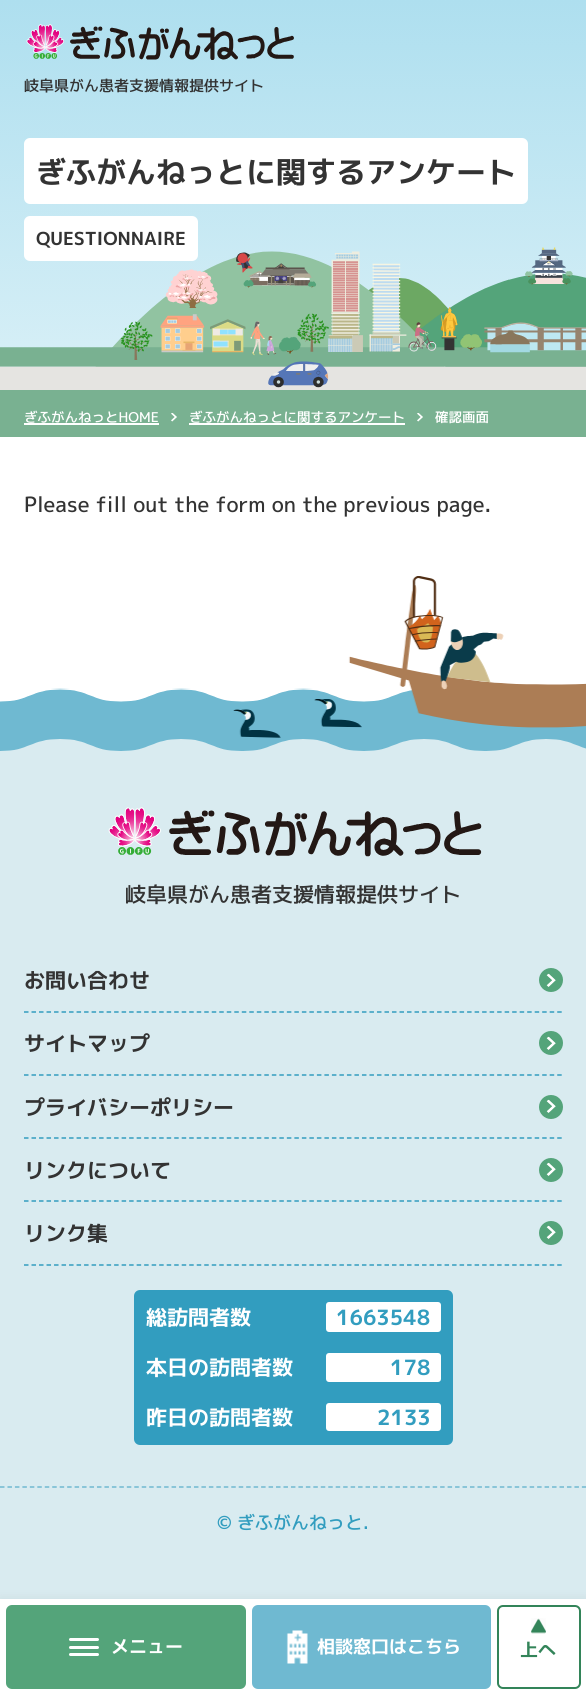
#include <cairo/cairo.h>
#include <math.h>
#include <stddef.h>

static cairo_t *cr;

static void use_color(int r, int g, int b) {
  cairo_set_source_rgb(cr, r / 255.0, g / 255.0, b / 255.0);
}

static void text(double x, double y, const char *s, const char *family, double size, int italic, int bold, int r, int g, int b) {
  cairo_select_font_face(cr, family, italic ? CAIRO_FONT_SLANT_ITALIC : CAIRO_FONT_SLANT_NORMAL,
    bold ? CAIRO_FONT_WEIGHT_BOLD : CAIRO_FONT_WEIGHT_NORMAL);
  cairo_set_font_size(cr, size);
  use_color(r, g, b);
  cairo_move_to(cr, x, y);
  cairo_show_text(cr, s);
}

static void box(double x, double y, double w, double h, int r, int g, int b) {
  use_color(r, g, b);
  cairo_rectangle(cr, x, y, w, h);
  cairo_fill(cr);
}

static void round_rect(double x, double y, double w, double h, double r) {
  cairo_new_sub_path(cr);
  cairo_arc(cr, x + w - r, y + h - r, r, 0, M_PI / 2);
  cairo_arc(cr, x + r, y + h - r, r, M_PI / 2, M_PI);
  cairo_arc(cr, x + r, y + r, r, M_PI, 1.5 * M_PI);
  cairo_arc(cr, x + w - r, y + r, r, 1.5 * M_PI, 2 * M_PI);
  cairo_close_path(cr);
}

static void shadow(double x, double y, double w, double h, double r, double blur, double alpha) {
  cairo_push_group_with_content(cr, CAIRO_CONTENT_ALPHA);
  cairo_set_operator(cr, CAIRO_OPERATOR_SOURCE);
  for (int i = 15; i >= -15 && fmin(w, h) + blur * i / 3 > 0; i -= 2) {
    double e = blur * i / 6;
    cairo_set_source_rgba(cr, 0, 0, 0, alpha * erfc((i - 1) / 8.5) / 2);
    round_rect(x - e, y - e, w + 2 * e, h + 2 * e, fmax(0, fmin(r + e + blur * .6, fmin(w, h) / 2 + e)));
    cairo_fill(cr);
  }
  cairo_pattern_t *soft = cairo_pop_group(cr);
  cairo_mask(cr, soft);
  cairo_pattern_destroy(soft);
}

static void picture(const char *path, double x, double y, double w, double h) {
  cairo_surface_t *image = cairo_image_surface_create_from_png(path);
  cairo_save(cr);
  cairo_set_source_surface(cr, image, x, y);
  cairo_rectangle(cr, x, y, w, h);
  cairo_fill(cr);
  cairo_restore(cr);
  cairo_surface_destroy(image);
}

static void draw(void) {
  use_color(255, 255, 255);
  cairo_paint(cr);
  picture("img_02.png", 0, 0, 586, 390);
  picture("img_01.png", 26, 24, 268, 36);
  use_color(255, 255, 255);
  round_rect(24, 138, 504, 66, 6);
  cairo_fill(cr);
  round_rect(24, 216, 174, 45, 6);
  cairo_fill(cr);
  box(0, 390, 586, 47, 121, 177, 145);
  box(24, 423, 135, 2, 255, 255, 255);
  picture("img_03.png", 171, 413, 6, 9);
  box(189, 423, 216, 2, 255, 255, 255);
  picture("img_03.png", 417, 413, 6, 9);
  box(0, 751, 586, 848, 217, 235, 240);
  picture("img_05.png", 0, 688, 586, 63);
  picture("img_04.png", 233, 576, 353, 162);
  picture("img_06.png", 108, 807, 374, 50);
  cairo_new_path(cr);
  cairo_move_to(cr, 24, 1012);
  cairo_line_to(cr, 562.5, 1012);
  use_color(50, 157, 191);
  cairo_set_line_width(cr, 1.5);
  cairo_set_dash(cr, (double[]){4.5, 3.01}, 2, 0);
  cairo_stroke(cr);
  use_color(84, 164, 122);
  cairo_arc(cr, 551, 980, 12, 0, 2 * M_PI);
  cairo_fill(cr);
  picture("img_07.png", 546, 973, 10, 14);
  cairo_new_path(cr);
  cairo_move_to(cr, 24, 1075);
  cairo_line_to(cr, 562.5, 1075);
  use_color(50, 157, 191);
  cairo_stroke(cr);
  use_color(84, 164, 122);
  cairo_arc(cr, 551, 1043, 12, 0, 2 * M_PI);
  cairo_fill(cr);
  picture("img_07.png", 546, 1036, 10, 14);
  cairo_new_path(cr);
  cairo_move_to(cr, 24, 1138);
  cairo_line_to(cr, 562.5, 1138);
  use_color(50, 157, 191);
  cairo_stroke(cr);
  use_color(84, 164, 122);
  cairo_arc(cr, 551, 1107, 12, 0, 2 * M_PI);
  cairo_fill(cr);
  picture("img_07.png", 546, 1099, 10, 14);
  cairo_new_path(cr);
  cairo_move_to(cr, 24, 1201);
  cairo_line_to(cr, 562.5, 1201);
  use_color(50, 157, 191);
  cairo_stroke(cr);
  use_color(84, 164, 122);
  cairo_arc(cr, 551, 1170, 12, 0, 2 * M_PI);
  cairo_fill(cr);
  picture("img_07.png", 546, 1162, 10, 14);
  cairo_new_path(cr);
  cairo_move_to(cr, 24, 1265);
  cairo_line_to(cr, 562.5, 1265);
  use_color(50, 157, 191);
  cairo_stroke(cr);
  use_color(84, 164, 122);
  cairo_arc(cr, 551, 1233, 12, 0, 2 * M_PI);
  cairo_fill(cr);
  picture("img_07.png", 546, 1225, 10, 14);
  use_color(50, 157, 191);
  round_rect(134, 1290, 319, 155, 6);
  cairo_fill(cr);
  use_color(255, 255, 255);
  round_rect(326, 1302, 115, 30, 3);
  cairo_fill(cr);
  round_rect(326, 1353, 115, 29, 3);
  cairo_fill(cr);
  round_rect(326, 1403, 115, 28, 3);
  cairo_fill(cr);
  cairo_new_path(cr);
  cairo_move_to(cr, 0, 1487);
  cairo_line_to(cr, 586.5, 1487);
  use_color(111, 185, 209);
  cairo_set_dash(cr, (double[]){4.5, 2.96}, 2, 0);
  cairo_stroke(cr);
  use_color(51, 51, 51);
  shadow(0, 1599, 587, 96, 0, 6, 0.08);
  box(0, 1599, 586, 95, 255, 255, 255);
  use_color(84, 164, 122);
  round_rect(6, 1605, 240, 84, 6);
  cairo_fill(cr);
  use_color(255, 255, 255);
  round_rect(69, 1646, 30, 3, 1.5);
  cairo_fill(cr);
  round_rect(69, 1638, 30, 3, 1.5);
  cairo_fill(cr);
  round_rect(69, 1653, 30, 3, 1.5);
  cairo_fill(cr);
  use_color(111, 185, 209);
  round_rect(252, 1605, 239, 84, 6);
  cairo_fill(cr);
  picture("img_08.png", 286, 1630, 22, 34);
  round_rect(498, 1606, 82, 82, 5);
  use_color(51, 132, 89);
  cairo_set_line_width(cr, 2);
  cairo_set_dash(cr, NULL, 0, 0);
  cairo_stroke(cr);
  picture("img_09.png", 531, 1618, 15, 16);
  text(24, 91, "岐阜県がん患者支援情報提供サイト", "M PLUS 1p Medium", 15, 0, 0, 51, 51, 51);
  text(36, 183, "ぎふがんねっとに関するアンケート", "M PLUS 1p", 30, 0, 1, 51, 51, 51);
  text(36, 245, "QUESTIONNAIRE", "M PLUS 1p", 18, 0, 1, 51, 51, 51);
  text(24, 422, "ぎふがんねっとHOME", "M PLUS 1p Medium", 13.5, 0, 0, 255, 255, 255);
  text(189, 422, "ぎふがんねっとに関するアンケート", "M PLUS 1p Medium", 13.5, 0, 0, 255, 255, 255);
  text(435, 422, "確認画面", "M PLUS 1p Medium", 13.5, 0, 0, 255, 255, 255);
  text(24, 512, "Please fill out the form on the previous page.", "M PLUS 1p Medium", 21, 0, 0, 51, 51, 51);
  text(125, 902, "岐阜県がん患者支援情報提供サイト", "M PLUS 1p Medium", 21, 0, 0, 51, 51, 51);
  text(24, 988, "お問い合わせ", "M PLUS 1p", 21, 0, 1, 51, 51, 51);
  text(24, 1051, "サイトマップ", "M PLUS 1p", 21, 0, 1, 51, 51, 51);
  text(24, 1115, "プライバシーポリシー", "M PLUS 1p", 21, 0, 1, 51, 51, 51);
  text(24, 1178, "リンクについて", "M PLUS 1p", 21, 0, 1, 51, 51, 51);
  text(24, 1241, "リンク集", "M PLUS 1p", 21, 0, 1, 51, 51, 51);
  text(146, 1325, "総訪問者数", "M PLUS 1p", 21, 0, 1, 255, 255, 255);
  text(336, 1325, "1663548", "M PLUS 1p", 21, 0, 1, 50, 157, 191);
  text(146, 1375, "本日の訪問者数", "M PLUS 1p", 21, 0, 1, 255, 255, 255);
  text(390, 1375, "178", "M PLUS 1p", 21, 0, 1, 50, 157, 191);
  text(146, 1425, "昨日の訪問者数", "M PLUS 1p", 21, 0, 1, 255, 255, 255);
  text(377, 1425, "2133", "M PLUS 1p", 21, 0, 1, 50, 157, 191);
  text(217, 1529, "© ぎふがんねっと.", "M PLUS 1p Medium", 18, 0, 0, 50, 157, 191);
  text(111, 1653, "メニュー", "M PLUS 1p", 18, 0, 1, 255, 255, 255);
  text(317, 1653, "相談窓口はこちら", "M PLUS 1p", 18, 0, 1, 255, 255, 255);
  text(520, 1656, "上へ", "M PLUS 1p", 18, 0, 1, 51, 132, 89);
}

int main(void) {
  cairo_surface_t *surface = cairo_image_surface_create(CAIRO_FORMAT_RGB24, 586, 1694);
  cr = cairo_create(surface);
  cairo_font_options_t *options = cairo_font_options_create();
  cairo_font_options_set_hint_metrics(options, CAIRO_HINT_METRICS_OFF);
  cairo_font_options_set_hint_style(options, CAIRO_HINT_STYLE_NONE);
  cairo_set_font_options(cr, options);
  cairo_set_miter_limit(cr, 4);
  draw();
  cairo_surface_write_to_png(surface, "out.png");
  cairo_font_options_destroy(options);
  cairo_destroy(cr);
  cairo_surface_destroy(surface);
  return 0;
}
